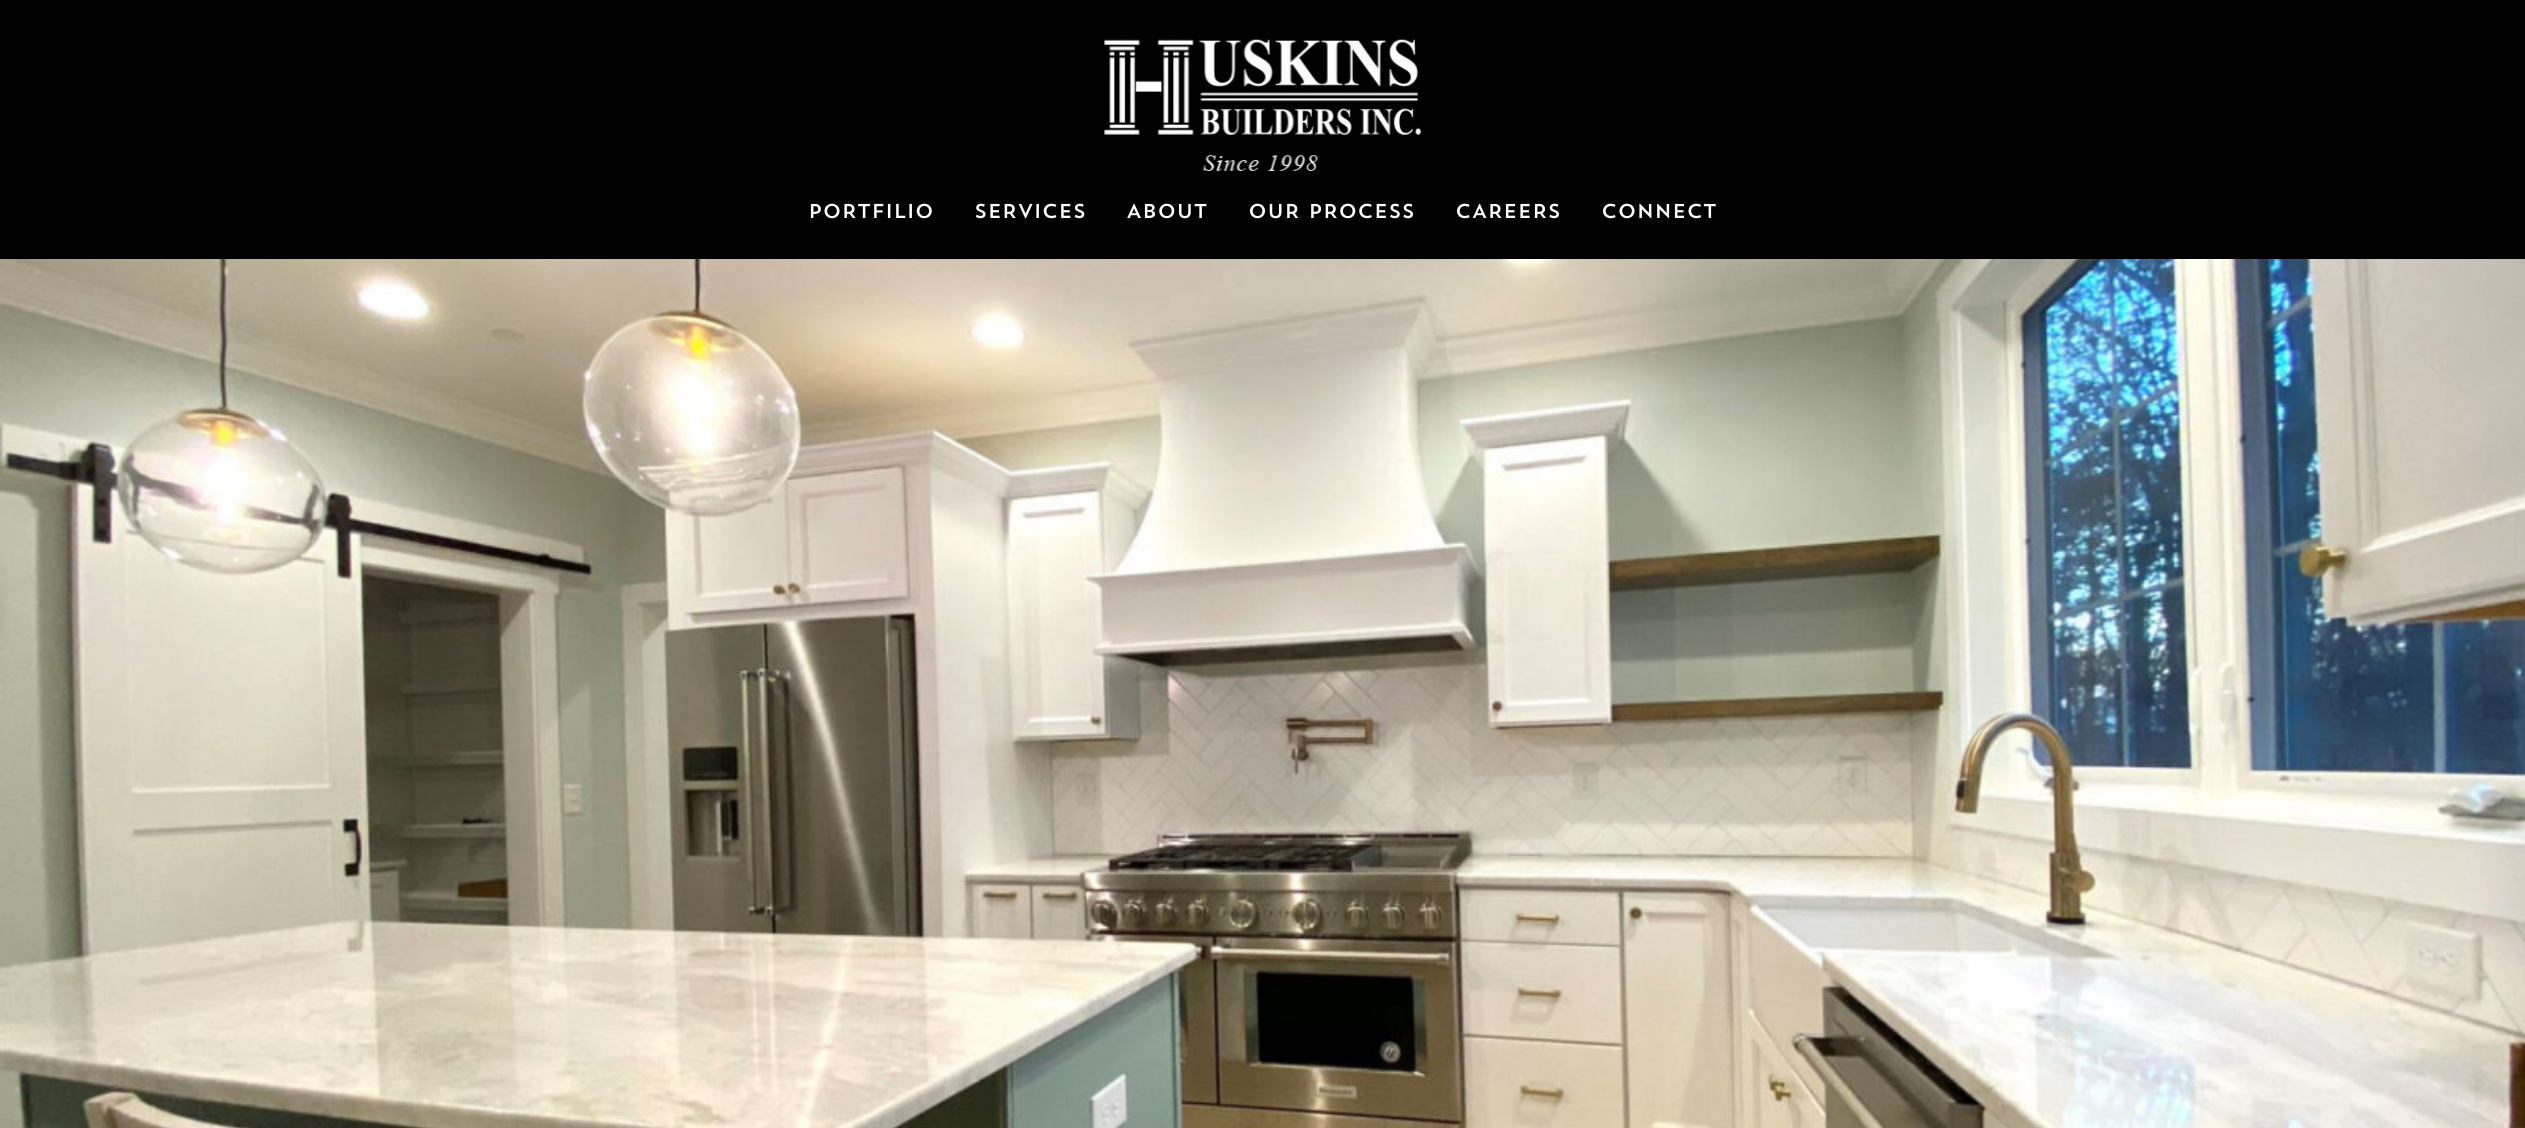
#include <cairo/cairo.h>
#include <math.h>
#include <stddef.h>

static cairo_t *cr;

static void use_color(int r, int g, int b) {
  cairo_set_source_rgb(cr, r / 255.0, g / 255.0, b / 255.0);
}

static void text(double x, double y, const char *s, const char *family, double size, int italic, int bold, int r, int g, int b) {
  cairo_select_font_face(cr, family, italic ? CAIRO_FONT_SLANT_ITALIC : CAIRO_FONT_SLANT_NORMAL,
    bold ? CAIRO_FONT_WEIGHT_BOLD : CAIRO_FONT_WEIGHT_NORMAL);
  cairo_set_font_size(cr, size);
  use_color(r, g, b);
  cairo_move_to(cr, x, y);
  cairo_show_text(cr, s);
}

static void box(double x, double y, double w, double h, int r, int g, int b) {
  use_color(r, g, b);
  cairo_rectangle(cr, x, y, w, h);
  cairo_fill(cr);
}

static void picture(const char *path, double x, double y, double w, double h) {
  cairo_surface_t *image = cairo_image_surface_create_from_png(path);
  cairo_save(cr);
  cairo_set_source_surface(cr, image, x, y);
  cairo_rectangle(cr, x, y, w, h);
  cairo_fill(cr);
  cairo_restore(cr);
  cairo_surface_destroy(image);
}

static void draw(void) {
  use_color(255, 255, 255);
  cairo_paint(cr);
  box(0, 0, 2525, 259, 0, 0, 0);
  picture("img_01.png", 1104, 39, 317, 132);
  picture("img_02.png", 0, 259, 2525, 869);
  text(808, 218, "PORTFILIO", "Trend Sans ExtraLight", 20, 0, 0, 255, 255, 255);
  text(974, 218, "SERVICES", "Trend Sans ExtraLight", 20, 0, 0, 255, 255, 255);
  text(1126, 218, "ABOUT", "Trend Sans ExtraLight", 20, 0, 0, 255, 255, 255);
  text(1248, 218, "OUR PROCESS", "Trend Sans ExtraLight", 20, 0, 0, 255, 255, 255);
  text(1455, 218, "CAREERS", "Trend Sans ExtraLight", 20, 0, 0, 255, 255, 255);
  text(1601, 218, "CONNECT", "Trend Sans ExtraLight", 20, 0, 0, 255, 255, 255);
}

int main(void) {
  cairo_surface_t *surface = cairo_image_surface_create(CAIRO_FORMAT_RGB24, 2525, 1128);
  cr = cairo_create(surface);
  cairo_font_options_t *options = cairo_font_options_create();
  cairo_font_options_set_hint_metrics(options, CAIRO_HINT_METRICS_OFF);
  cairo_font_options_set_hint_style(options, CAIRO_HINT_STYLE_NONE);
  cairo_set_font_options(cr, options);
  cairo_set_miter_limit(cr, 4);
  draw();
  cairo_surface_write_to_png(surface, "out.png");
  cairo_font_options_destroy(options);
  cairo_destroy(cr);
  cairo_surface_destroy(surface);
  return 0;
}
